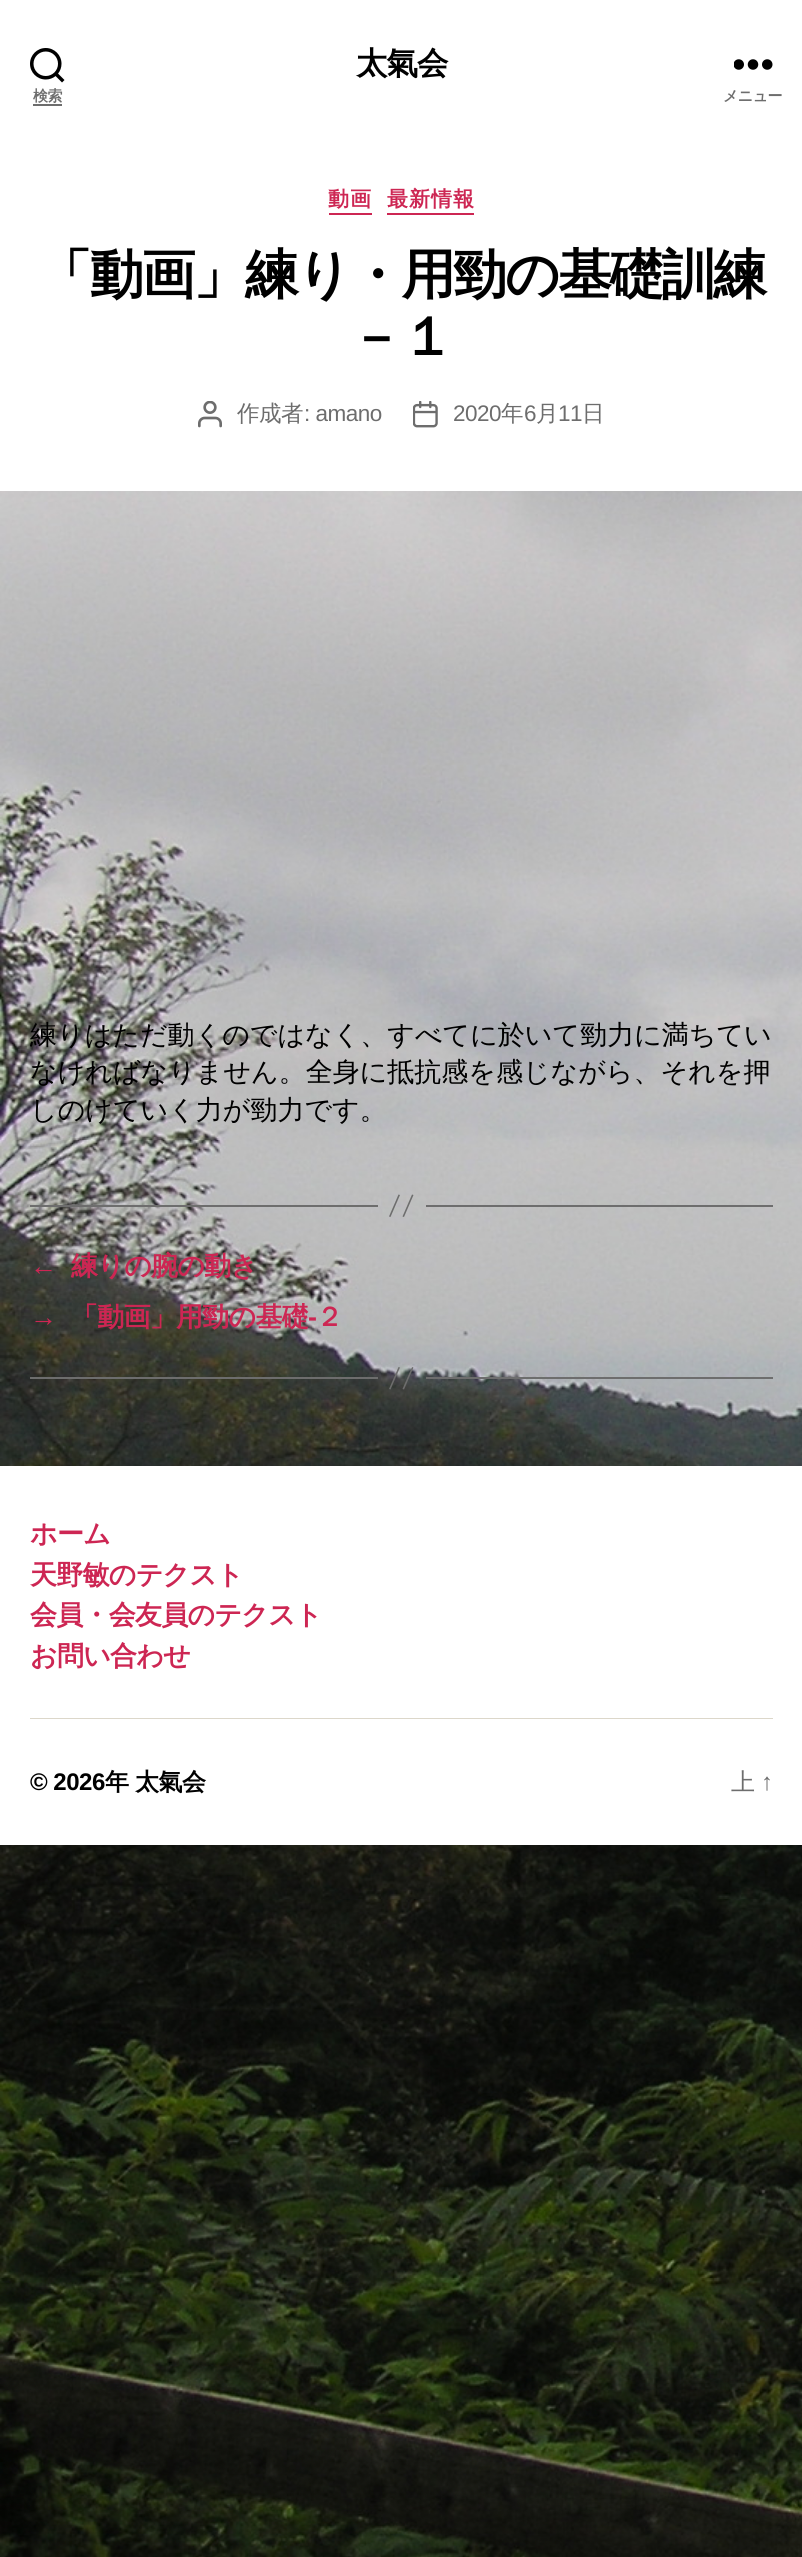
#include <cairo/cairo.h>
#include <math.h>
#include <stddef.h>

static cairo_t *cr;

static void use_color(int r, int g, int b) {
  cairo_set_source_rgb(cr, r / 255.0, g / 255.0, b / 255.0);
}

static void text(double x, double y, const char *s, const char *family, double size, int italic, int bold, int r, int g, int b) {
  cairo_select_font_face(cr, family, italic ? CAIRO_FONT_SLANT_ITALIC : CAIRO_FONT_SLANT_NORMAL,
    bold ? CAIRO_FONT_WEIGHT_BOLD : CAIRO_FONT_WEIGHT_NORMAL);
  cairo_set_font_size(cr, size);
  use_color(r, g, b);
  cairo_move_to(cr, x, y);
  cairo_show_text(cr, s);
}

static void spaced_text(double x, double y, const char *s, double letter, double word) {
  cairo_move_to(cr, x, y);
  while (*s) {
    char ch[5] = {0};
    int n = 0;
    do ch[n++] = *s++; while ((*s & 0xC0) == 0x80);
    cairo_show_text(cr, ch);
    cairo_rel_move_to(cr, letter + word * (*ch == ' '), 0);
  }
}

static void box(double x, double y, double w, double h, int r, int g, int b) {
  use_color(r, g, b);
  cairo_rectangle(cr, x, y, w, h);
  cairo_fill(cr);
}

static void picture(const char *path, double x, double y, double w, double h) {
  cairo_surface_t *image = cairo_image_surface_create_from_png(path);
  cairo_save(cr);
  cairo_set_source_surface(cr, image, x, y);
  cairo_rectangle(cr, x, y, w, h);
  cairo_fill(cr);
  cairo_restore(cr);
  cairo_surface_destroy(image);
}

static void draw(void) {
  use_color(255, 255, 255);
  cairo_paint(cr);
  picture("img_01.png", 0, 491, 802, 2066);
  picture("img_02.png", 30, 48, 35, 35);
  box(33, 104, 29, 2, 109, 109, 109);
  picture("img_03.png", 734, 59, 39, 11);
  box(329, 213, 43, 2, 205, 38, 83);
  box(387, 213, 87, 2, 205, 38, 83);
  picture("img_04.png", 198, 401, 24, 27);
  picture("img_05.png", 413, 401, 25, 27);
  box(426, 1205, 347, 2, 109, 109, 109);
  box(30, 1205, 348, 2, 109, 109, 109);
  cairo_new_path(cr);
  cairo_move_to(cr, 398.5, 1194.5);
  cairo_line_to(cr, 400, 1195);
  cairo_line_to(cr, 390.5, 1217);
  cairo_line_to(cr, 389, 1216.5);
  cairo_close_path(cr);
  cairo_move_to(cr, 412, 1194.5);
  cairo_line_to(cr, 413.5, 1195);
  cairo_line_to(cr, 404, 1217);
  cairo_line_to(cr, 402.5, 1216.5);
  cairo_close_path(cr);
  cairo_fill(cr);
  box(426, 1377, 347, 2, 109, 109, 109);
  box(30, 1377, 348, 2, 109, 109, 109);
  cairo_new_path(cr);
  cairo_move_to(cr, 398.5, 1367);
  cairo_line_to(cr, 400, 1367.5);
  cairo_line_to(cr, 390.5, 1389.5);
  cairo_line_to(cr, 389, 1389);
  cairo_close_path(cr);
  cairo_move_to(cr, 412, 1367);
  cairo_line_to(cr, 413.5, 1367.5);
  cairo_line_to(cr, 404, 1389.5);
  cairo_line_to(cr, 402.5, 1389);
  cairo_close_path(cr);
  cairo_fill(cr);
  box(0, 1466, 802, 379, 255, 255, 255);
  box(30, 1718, 743, 1, 220, 215, 202);
  cairo_select_font_face(cr, "WenQuanYi Zen Hei", CAIRO_FONT_SLANT_NORMAL, CAIRO_FONT_WEIGHT_BOLD);
  cairo_set_font_size(cr, 31.5);
  use_color(0, 0, 0);
  spaced_text(356, 74, "太氣会", -1, 0);
  cairo_set_font_size(cr, 15);
  use_color(109, 109, 109);
  spaced_text(33, 101, "検索", -0.5, 0);
  spaced_text(723, 101, "メニュー", -0.5, 0);
  cairo_set_font_size(cr, 21);
  use_color(205, 38, 83);
  spaced_text(328, 206, "動画", 1, 0);
  spaced_text(387, 206, "最新情報", 1, 0);
  cairo_set_font_size(cr, 54);
  use_color(0, 0, 0);
  spaced_text(38, 293, "「動画」練り・用勁の基礎訓練", -2.25, 0);
  spaced_text(349, 355, "－１", -2.25, 0);
  cairo_select_font_face(cr, "WenQuanYi Zen Hei Medium", CAIRO_FONT_SLANT_NORMAL, CAIRO_FONT_WEIGHT_NORMAL);
  cairo_set_font_size(cr, 22.5);
  use_color(109, 109, 109);
  spaced_text(237, 421, "作成者", -0.5, 0);
  cairo_select_font_face(cr, "Liberation Sans", CAIRO_FONT_SLANT_NORMAL, CAIRO_FONT_WEIGHT_NORMAL);
  spaced_text(304, 421, ": amano", -0.5, 0);
  spaced_text(453, 421, "2020", -0.5, 0);
  cairo_select_font_face(cr, "WenQuanYi Zen Hei Medium", CAIRO_FONT_SLANT_NORMAL, CAIRO_FONT_WEIGHT_NORMAL);
  spaced_text(501, 421, "年", -0.5, 0);
  cairo_select_font_face(cr, "Liberation Sans", CAIRO_FONT_SLANT_NORMAL, CAIRO_FONT_WEIGHT_NORMAL);
  spaced_text(524, 421, "6", -0.5, 0);
  cairo_select_font_face(cr, "WenQuanYi Zen Hei Medium", CAIRO_FONT_SLANT_NORMAL, CAIRO_FONT_WEIGHT_NORMAL);
  spaced_text(536, 421, "月", -0.5, 0);
  cairo_select_font_face(cr, "Liberation Sans", CAIRO_FONT_SLANT_NORMAL, CAIRO_FONT_WEIGHT_NORMAL);
  spaced_text(558, 421, "11", -0.5, 0);
  cairo_select_font_face(cr, "WenQuanYi Zen Hei Medium", CAIRO_FONT_SLANT_NORMAL, CAIRO_FONT_WEIGHT_NORMAL);
  spaced_text(582, 421, "日", -0.5, 0);
  text(30, 1044, "練りはただ動くのではなく、すべてに於いて勁力に満ちてい", "WenQuanYi Zen Hei Medium", 27, 0, 0, 0, 0, 0);
  text(30, 1081, "なければなりません。全身に抵抗感を感じながら、それを押", "WenQuanYi Zen Hei Medium", 27, 0, 0, 0, 0, 0);
  text(30, 1119, "しのけていく力が勁力です。", "WenQuanYi Zen Hei Medium", 27, 0, 0, 0, 0, 0);
  cairo_select_font_face(cr, "Liberation Sans", CAIRO_FONT_SLANT_NORMAL, CAIRO_FONT_WEIGHT_BOLD);
  use_color(205, 38, 83);
  spaced_text(30, 1275, "←", -0.75, 0);
  cairo_select_font_face(cr, "WenQuanYi Zen Hei", CAIRO_FONT_SLANT_NORMAL, CAIRO_FONT_WEIGHT_BOLD);
  spaced_text(71, 1275, "練りの腕の動き", -0.75, 0);
  cairo_select_font_face(cr, "Liberation Sans", CAIRO_FONT_SLANT_NORMAL, CAIRO_FONT_WEIGHT_BOLD);
  spaced_text(30, 1326, "→", -0.75, 0);
  cairo_select_font_face(cr, "WenQuanYi Zen Hei", CAIRO_FONT_SLANT_NORMAL, CAIRO_FONT_WEIGHT_BOLD);
  spaced_text(71, 1326, "「動画」用勁の基礎", -0.75, 0);
  cairo_select_font_face(cr, "Liberation Sans", CAIRO_FONT_SLANT_NORMAL, CAIRO_FONT_WEIGHT_BOLD);
  spaced_text(308, 1326, "-", -0.75, 0);
  cairo_select_font_face(cr, "WenQuanYi Zen Hei", CAIRO_FONT_SLANT_NORMAL, CAIRO_FONT_WEIGHT_BOLD);
  spaced_text(316, 1326, "２", -0.75, 0);
  spaced_text(30, 1543, "ホーム", -0.75, 0);
  spaced_text(30, 1584, "天野敏のテクスト", -0.75, 0);
  spaced_text(30, 1624, "会員・会友員のテクスト", -0.75, 0);
  spaced_text(30, 1665, "お問い合わせ", -0.75, 0);
  cairo_select_font_face(cr, "Liberation Sans", CAIRO_FONT_SLANT_NORMAL, CAIRO_FONT_WEIGHT_BOLD);
  cairo_set_font_size(cr, 24);
  use_color(0, 0, 0);
  spaced_text(30, 1790, "© 2026", -0.5, 0);
  cairo_select_font_face(cr, "WenQuanYi Zen Hei", CAIRO_FONT_SLANT_NORMAL, CAIRO_FONT_WEIGHT_BOLD);
  spaced_text(105, 1790, "年", -0.5, 0);
  spaced_text(135, 1790, "太氣会", -0.5, 0);
  cairo_select_font_face(cr, "WenQuanYi Zen Hei Medium", CAIRO_FONT_SLANT_NORMAL, CAIRO_FONT_WEIGHT_NORMAL);
  use_color(109, 109, 109);
  spaced_text(731, 1790, "上", -0.5, 0);
  cairo_select_font_face(cr, "Liberation Sans", CAIRO_FONT_SLANT_NORMAL, CAIRO_FONT_WEIGHT_NORMAL);
  spaced_text(761, 1790, "↑", -0.5, 0);
}

int main(void) {
  cairo_surface_t *surface = cairo_image_surface_create(CAIRO_FORMAT_RGB24, 802, 2557);
  cr = cairo_create(surface);
  cairo_font_options_t *options = cairo_font_options_create();
  cairo_font_options_set_hint_metrics(options, CAIRO_HINT_METRICS_OFF);
  cairo_font_options_set_hint_style(options, CAIRO_HINT_STYLE_NONE);
  cairo_set_font_options(cr, options);
  cairo_set_miter_limit(cr, 4);
  draw();
  cairo_surface_write_to_png(surface, "out.png");
  cairo_font_options_destroy(options);
  cairo_destroy(cr);
  cairo_surface_destroy(surface);
  return 0;
}
